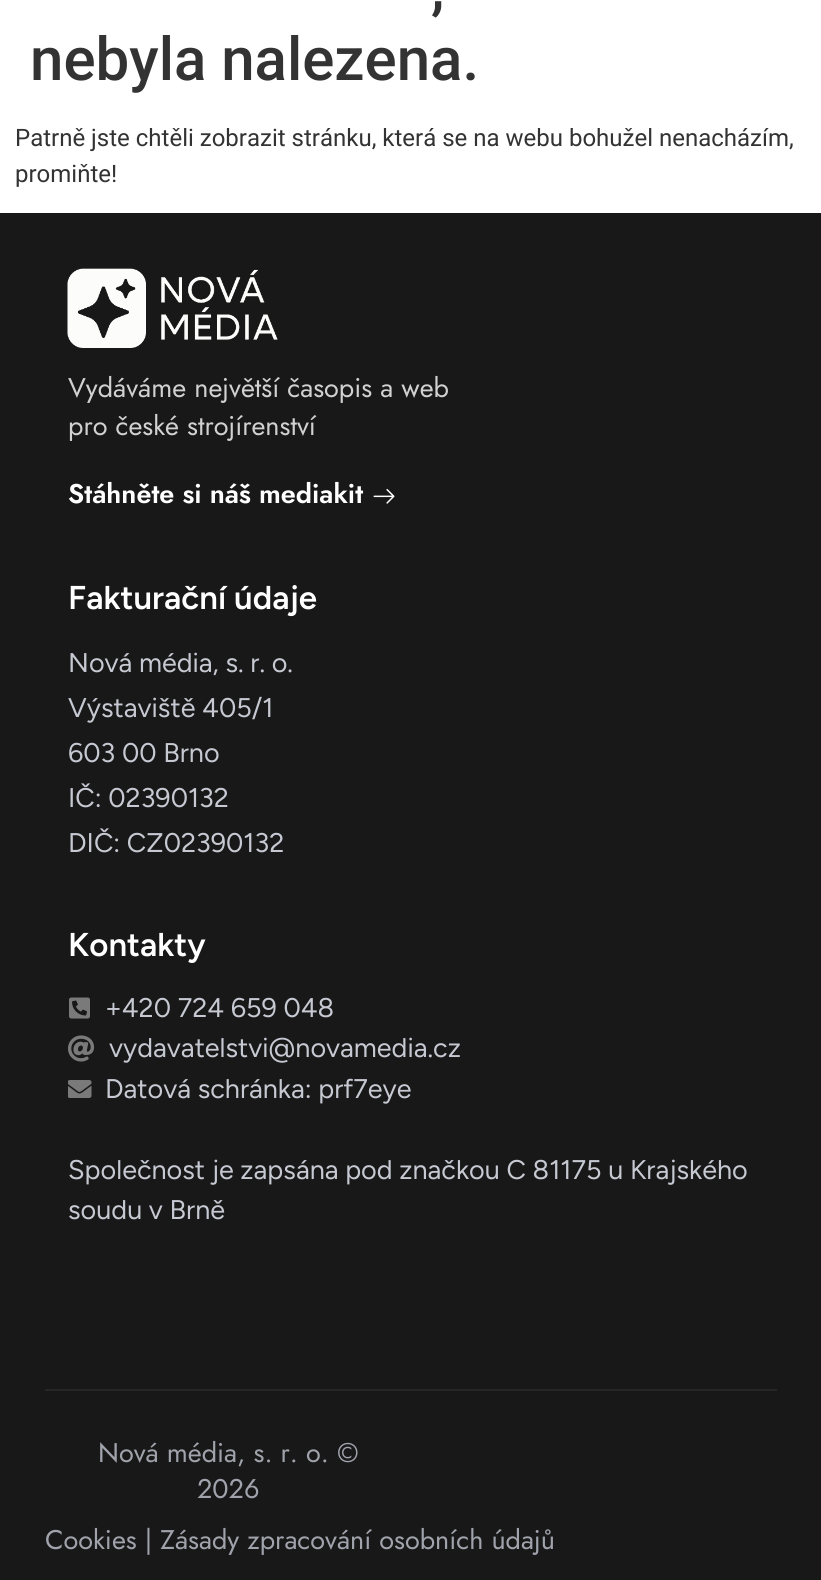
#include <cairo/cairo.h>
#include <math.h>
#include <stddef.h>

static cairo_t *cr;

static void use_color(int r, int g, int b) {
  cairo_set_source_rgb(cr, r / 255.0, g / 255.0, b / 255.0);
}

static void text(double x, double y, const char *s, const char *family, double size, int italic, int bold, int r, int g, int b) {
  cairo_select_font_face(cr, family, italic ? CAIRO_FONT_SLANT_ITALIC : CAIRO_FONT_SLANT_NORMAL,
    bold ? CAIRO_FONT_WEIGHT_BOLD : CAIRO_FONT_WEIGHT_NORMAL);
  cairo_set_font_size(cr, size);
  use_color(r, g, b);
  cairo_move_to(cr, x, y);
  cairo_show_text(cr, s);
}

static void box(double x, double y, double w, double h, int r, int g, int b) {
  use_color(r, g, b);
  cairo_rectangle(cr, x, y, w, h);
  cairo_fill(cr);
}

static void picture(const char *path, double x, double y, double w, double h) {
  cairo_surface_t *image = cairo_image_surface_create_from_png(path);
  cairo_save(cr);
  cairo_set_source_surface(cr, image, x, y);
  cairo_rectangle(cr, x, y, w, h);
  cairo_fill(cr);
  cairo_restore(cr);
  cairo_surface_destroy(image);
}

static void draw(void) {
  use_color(255, 255, 255);
  cairo_paint(cr);
  box(0, 213, 821, 1367, 24, 24, 24);
  picture("img_01.png", 67, 268, 211, 80);
  picture("img_02.png", 373, 489, 22, 15);
  picture("img_03.png", 69, 997, 21, 22);
  picture("img_04.png", 68, 1035, 27, 27);
  picture("img_05.png", 68, 1080, 24, 18);
  box(45, 1389, 732, 2, 38, 38, 38);
  text(431, 8, ",", "Roboto Medium", 60, 0, 0, 51, 51, 51);
  text(30, 80, "nebyla nalezena.", "Roboto Medium", 60, 0, 0, 51, 51, 51);
  text(15, 146, "Patrně jste chtěli zobrazit stránku, která se na webu bohužel nenacházím,", "Roboto", 24, 0, 0, 51, 51, 51);
  text(15, 182, "promiňte!", "Roboto", 24, 0, 0, 51, 51, 51);
  text(68, 397, "Vydáváme největší časopis a web", "Jost", 27, 0, 0, 209, 209, 209);
  text(68, 435, "pro české strojírenství", "Jost", 27, 0, 0, 209, 209, 209);
  text(68, 503, "Stáhněte si náš mediakit", "Jost SemiBold", 27, 0, 0, 255, 255, 255);
  text(68, 609, "Fakturační údaje", "Figtree SemiBold", 33, 0, 0, 255, 255, 255);
  text(68, 672, "Nová média, s. r. o.", "Figtree", 27, 0, 0, 198, 201, 210);
  text(68, 717, "Výstaviště 405/1", "Figtree", 27, 0, 0, 198, 201, 210);
  text(68, 762, "603 00 Brno", "Figtree", 27, 0, 0, 198, 201, 210);
  text(68, 807, "IČ: 02390132", "Figtree", 27, 0, 0, 198, 201, 210);
  text(68, 852, "DIČ: CZ02390132", "Figtree", 27, 0, 0, 198, 201, 210);
  text(68, 956, "Kontakty", "Figtree SemiBold", 33, 0, 0, 255, 255, 255);
  text(105, 1017, "+420 724 659 048", "Figtree", 27, 0, 0, 198, 201, 210);
  text(109, 1057, "vydavatelstvi@novamedia.cz", "Figtree", 27, 0, 0, 198, 201, 210);
  text(105, 1098, "Datová schránka: prf7eye", "Figtree", 27, 0, 0, 198, 201, 210);
  text(68, 1179, "Společnost je zapsána pod značkou C 81175 u Krajského", "Figtree", 27, 0, 0, 198, 201, 210);
  text(68, 1219, "soudu v Brně", "Figtree", 27, 0, 0, 198, 201, 210);
  text(98, 1462, "Nová média, s. r. o. ©", "Jost", 27, 0, 0, 160, 163, 171);
  text(197, 1498, "2026", "Jost", 27, 0, 0, 160, 163, 171);
  text(45, 1549, "Cookies | Zásady zpracování osobních údajů", "Jost", 27, 0, 0, 160, 163, 171);
}

int main(void) {
  cairo_surface_t *surface = cairo_image_surface_create(CAIRO_FORMAT_RGB24, 821, 1580);
  cr = cairo_create(surface);
  cairo_font_options_t *options = cairo_font_options_create();
  cairo_font_options_set_hint_metrics(options, CAIRO_HINT_METRICS_OFF);
  cairo_font_options_set_hint_style(options, CAIRO_HINT_STYLE_NONE);
  cairo_set_font_options(cr, options);
  cairo_set_miter_limit(cr, 4);
  draw();
  cairo_surface_write_to_png(surface, "out.png");
  cairo_font_options_destroy(options);
  cairo_destroy(cr);
  cairo_surface_destroy(surface);
  return 0;
}
